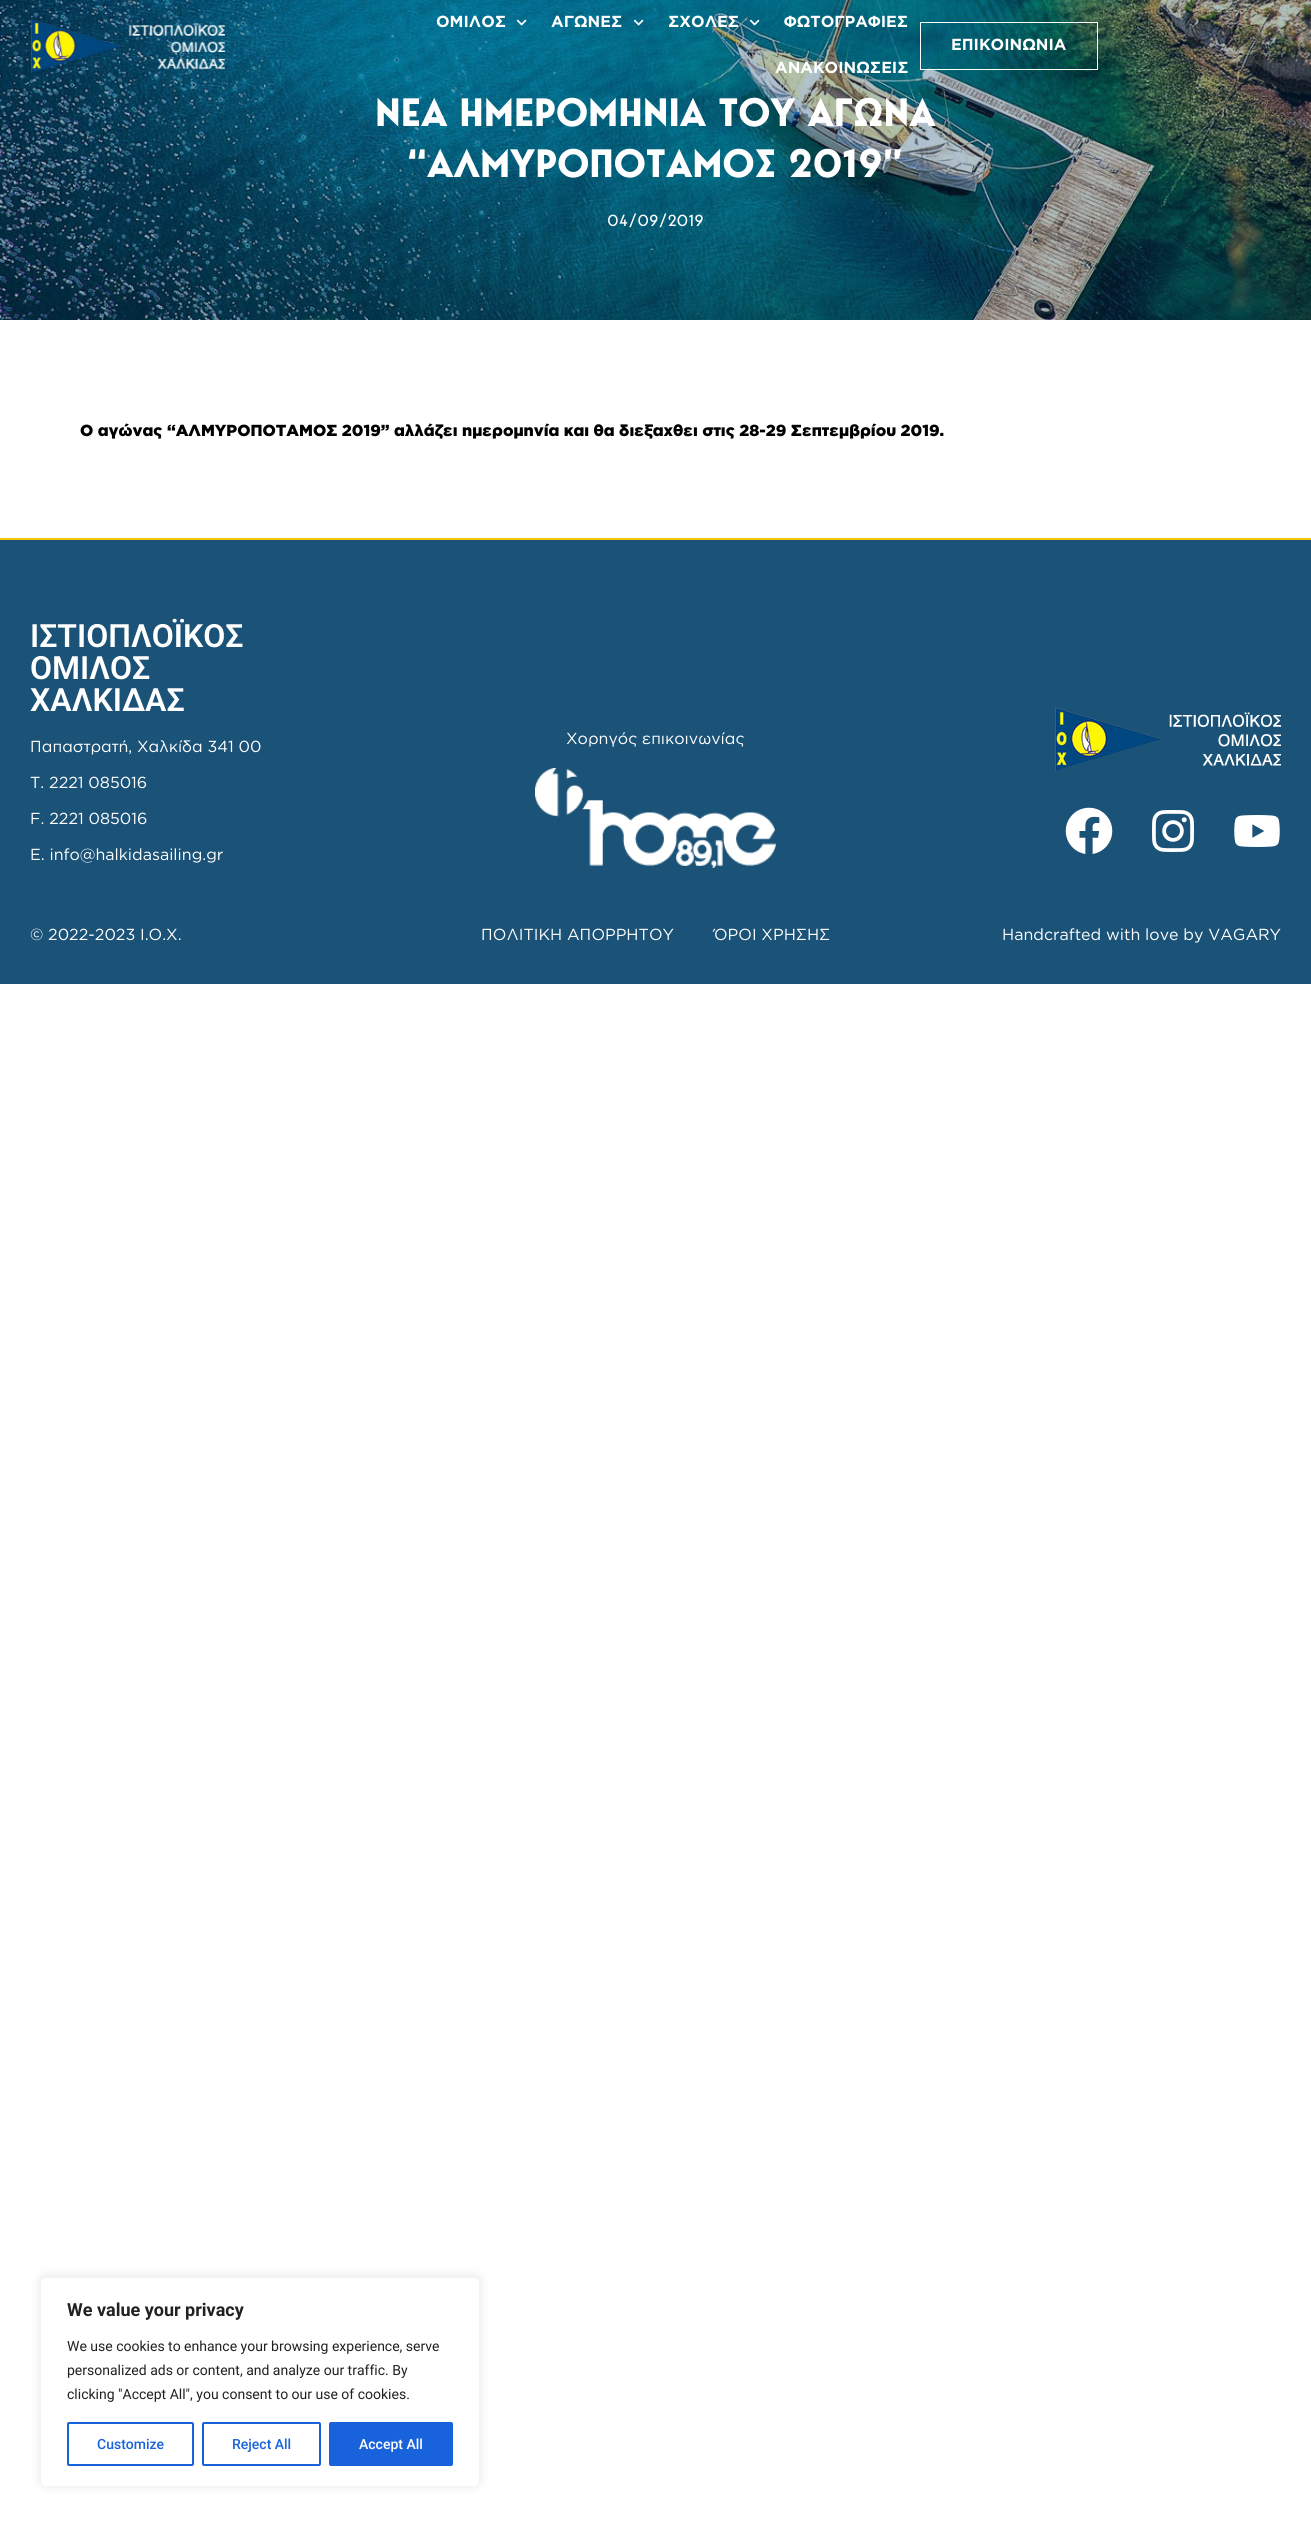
#include <cairo/cairo.h>
#include <math.h>
#include <stddef.h>

static cairo_t *cr;

static void use_color(int r, int g, int b) {
  cairo_set_source_rgb(cr, r / 255.0, g / 255.0, b / 255.0);
}

static void text(double x, double y, const char *s, const char *family, double size, int italic, int bold, int r, int g, int b) {
  cairo_select_font_face(cr, family, italic ? CAIRO_FONT_SLANT_ITALIC : CAIRO_FONT_SLANT_NORMAL,
    bold ? CAIRO_FONT_WEIGHT_BOLD : CAIRO_FONT_WEIGHT_NORMAL);
  cairo_set_font_size(cr, size);
  use_color(r, g, b);
  cairo_move_to(cr, x, y);
  cairo_show_text(cr, s);
}

static void box(double x, double y, double w, double h, int r, int g, int b) {
  use_color(r, g, b);
  cairo_rectangle(cr, x, y, w, h);
  cairo_fill(cr);
}

static void round_rect(double x, double y, double w, double h, double r) {
  cairo_new_sub_path(cr);
  cairo_arc(cr, x + w - r, y + h - r, r, 0, M_PI / 2);
  cairo_arc(cr, x + r, y + h - r, r, M_PI / 2, M_PI);
  cairo_arc(cr, x + r, y + r, r, M_PI, 1.5 * M_PI);
  cairo_arc(cr, x + w - r, y + r, r, 1.5 * M_PI, 2 * M_PI);
  cairo_close_path(cr);
}

static void shadow(double x, double y, double w, double h, double r, double blur, double alpha) {
  cairo_push_group_with_content(cr, CAIRO_CONTENT_ALPHA);
  cairo_set_operator(cr, CAIRO_OPERATOR_SOURCE);
  for (int i = 15; i >= -15 && fmin(w, h) + blur * i / 3 > 0; i -= 2) {
    double e = blur * i / 6;
    cairo_set_source_rgba(cr, 0, 0, 0, alpha * erfc((i - 1) / 8.5) / 2);
    round_rect(x - e, y - e, w + 2 * e, h + 2 * e, fmax(0, fmin(r + e + blur * .6, fmin(w, h) / 2 + e)));
    cairo_fill(cr);
  }
  cairo_pattern_t *soft = cairo_pop_group(cr);
  cairo_mask(cr, soft);
  cairo_pattern_destroy(soft);
}

static void picture(const char *path, double x, double y, double w, double h) {
  cairo_surface_t *image = cairo_image_surface_create_from_png(path);
  cairo_save(cr);
  cairo_set_source_surface(cr, image, x, y);
  cairo_rectangle(cr, x, y, w, h);
  cairo_fill(cr);
  cairo_restore(cr);
  cairo_surface_destroy(image);
}

static void draw(void) {
  use_color(255, 255, 255);
  cairo_paint(cr);
  picture("img_05.png", 0, 0, 1311, 320);
  picture("img_01.png", 31, 19, 194, 55);
  picture("img_02.png", 516, 19, 11, 7);
  picture("img_03.png", 633, 19, 11, 7);
  picture("img_04.png", 749, 19, 11, 7);
  cairo_rectangle(cr, 920.5, 22.5, 177, 47);
  use_color(255, 255, 255);
  cairo_set_line_width(cr, 1);
  cairo_stroke(cr);
  box(0, 538, 1311, 2, 255, 195, 0);
  box(0, 540, 1311, 444, 27, 82, 119);
  picture("img_06.png", 535, 768, 241, 100);
  picture("img_07.png", 1055, 707, 226, 64);
  picture("img_08.png", 1065, 807, 48, 47);
  picture("img_09.png", 1152, 810, 42, 42);
  picture("img_10.png", 1234, 815, 46, 32);
  use_color(172, 171, 171);
  shadow(40, 2276, 440, 210, 6, 5, 0.3);
  use_color(255, 255, 255);
  round_rect(40.5, 2277.5, 439, 209, 5.5);
  cairo_fill_preserve(cr);
  use_color(244, 244, 244);
  cairo_stroke(cr);
  round_rect(68, 2423, 125, 42, 1);
  use_color(24, 99, 220);
  cairo_set_line_width(cr, 2);
  cairo_stroke(cr);
  round_rect(203, 2423, 117, 42, 1);
  cairo_stroke(cr);
  round_rect(330, 2423, 122, 42, 1);
  cairo_fill_preserve(cr);
  cairo_stroke(cr);
  text(436, 27, "ΟΜΙΛΟΣ", "Gotham", 16, 0, 1, 255, 255, 255);
  text(551, 27, "ΑΓΩΝΕΣ", "Gotham", 16, 0, 1, 255, 255, 255);
  text(668, 27, "ΣΧΟΛΕΣ", "Gotham", 16, 0, 1, 255, 255, 255);
  text(784, 27, "ΦΩΤΟΓΡΑΦΙΕΣ", "Gotham", 16, 0, 1, 255, 255, 255);
  text(775, 73, "ΑΝΑΚΟΙΝΩΣΕΙΣ", "Gotham", 16, 0, 1, 255, 255, 255);
  text(951, 50, "ΕΠΙΚΟΙΝΩΝΙΑ", "Gotham", 16, 0, 1, 255, 255, 255);
  text(375, 126, "ΝΕΑ ΗΜΕΡΟΜΗΝΙΑ ΤΟΥ ΑΓΩΝΑ", "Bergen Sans", 39.3, 0, 1, 255, 255, 255);
  text(407, 177, "“ΑΛΜΥΡΟΠΟΤΑΜΟΣ 2019”", "Bergen Sans", 39.3, 0, 1, 255, 255, 255);
  text(607, 226, "04/09/2019", "Bergen Sans", 16, 0, 0, 255, 255, 255);
  text(80, 436, "Ο αγώνας “ΑΛΜΥΡΟΠΟΤΑΜΟΣ 2019” αλλάζει ημερομηνία και θα διεξαχθει στις 28-29 Σεπτεμβρίου 2019.", "Gotham Black", 16, 0, 0, 0, 0, 0);
  text(30, 647, "ΙΣΤΙΟΠΛΟΪΚΟΣ", "Roboto SemiBold", 32, 0, 0, 255, 255, 255);
  text(30, 679, "ΟΜΙΛΟΣ", "Roboto SemiBold", 32, 0, 0, 255, 255, 255);
  text(30, 711, "ΧΑΛΚΙΔΑΣ", "Roboto SemiBold", 32, 0, 0, 255, 255, 255);
  text(30, 752, "Παπαστρατή, Χαλκίδα 341 00", "Gotham", 16, 0, 0, 255, 255, 255);
  text(30, 788, "Τ. 2221 085016", "Gotham", 16, 0, 0, 255, 255, 255);
  text(30, 824, "F. 2221 085016", "Gotham", 16, 0, 0, 255, 255, 255);
  text(30, 860, "E. info@halkidasailing.gr", "Gotham", 16, 0, 0, 255, 255, 255);
  text(30, 940, "© 2022-2023 I.O.X.", "Gotham", 16, 0, 0, 255, 255, 255);
  text(566, 744, "Χορηγός επικοινωνίας", "Gotham", 16, 0, 0, 255, 255, 255);
  text(481, 940, "ΠΟΛΙΤΙΚΗ ΑΠΟΡΡΗΤΟΥ", "Gotham", 16, 0, 0, 255, 255, 255);
  text(714, 940, "ΌΡΟΙ ΧΡΗΣΗΣ", "Gotham", 16, 0, 0, 255, 255, 255);
  text(1002, 940, "Handcrafted with love by VAGARY", "Gotham", 16, 0, 0, 255, 255, 255);
  text(67, 2316, "We value your privacy", "Roboto", 18, 0, 1, 33, 33, 33);
  text(67, 2351, "We use cookies to enhance your browsing experience, serve", "Roboto", 14, 0, 0, 33, 33, 33);
  text(67, 2375, "personalized ads or content, and analyze our traffic. By", "Roboto", 14, 0, 0, 33, 33, 33);
  text(67, 2399, "clicking \"Accept All\", you consent to our use of cookies.", "Roboto", 14, 0, 0, 33, 33, 33);
  text(97, 2449, "Customize", "Roboto Medium", 14, 0, 0, 24, 99, 220);
  text(232, 2449, "Reject All", "Roboto Medium", 14, 0, 0, 24, 99, 220);
  text(359, 2449, "Accept All", "Roboto Medium", 14, 0, 0, 255, 255, 255);
}

int main(void) {
  cairo_surface_t *surface = cairo_image_surface_create(CAIRO_FORMAT_RGB24, 1311, 2527);
  cr = cairo_create(surface);
  cairo_font_options_t *options = cairo_font_options_create();
  cairo_font_options_set_hint_metrics(options, CAIRO_HINT_METRICS_OFF);
  cairo_font_options_set_hint_style(options, CAIRO_HINT_STYLE_NONE);
  cairo_set_font_options(cr, options);
  cairo_set_miter_limit(cr, 4);
  draw();
  cairo_surface_write_to_png(surface, "out.png");
  cairo_font_options_destroy(options);
  cairo_destroy(cr);
  cairo_surface_destroy(surface);
  return 0;
}
